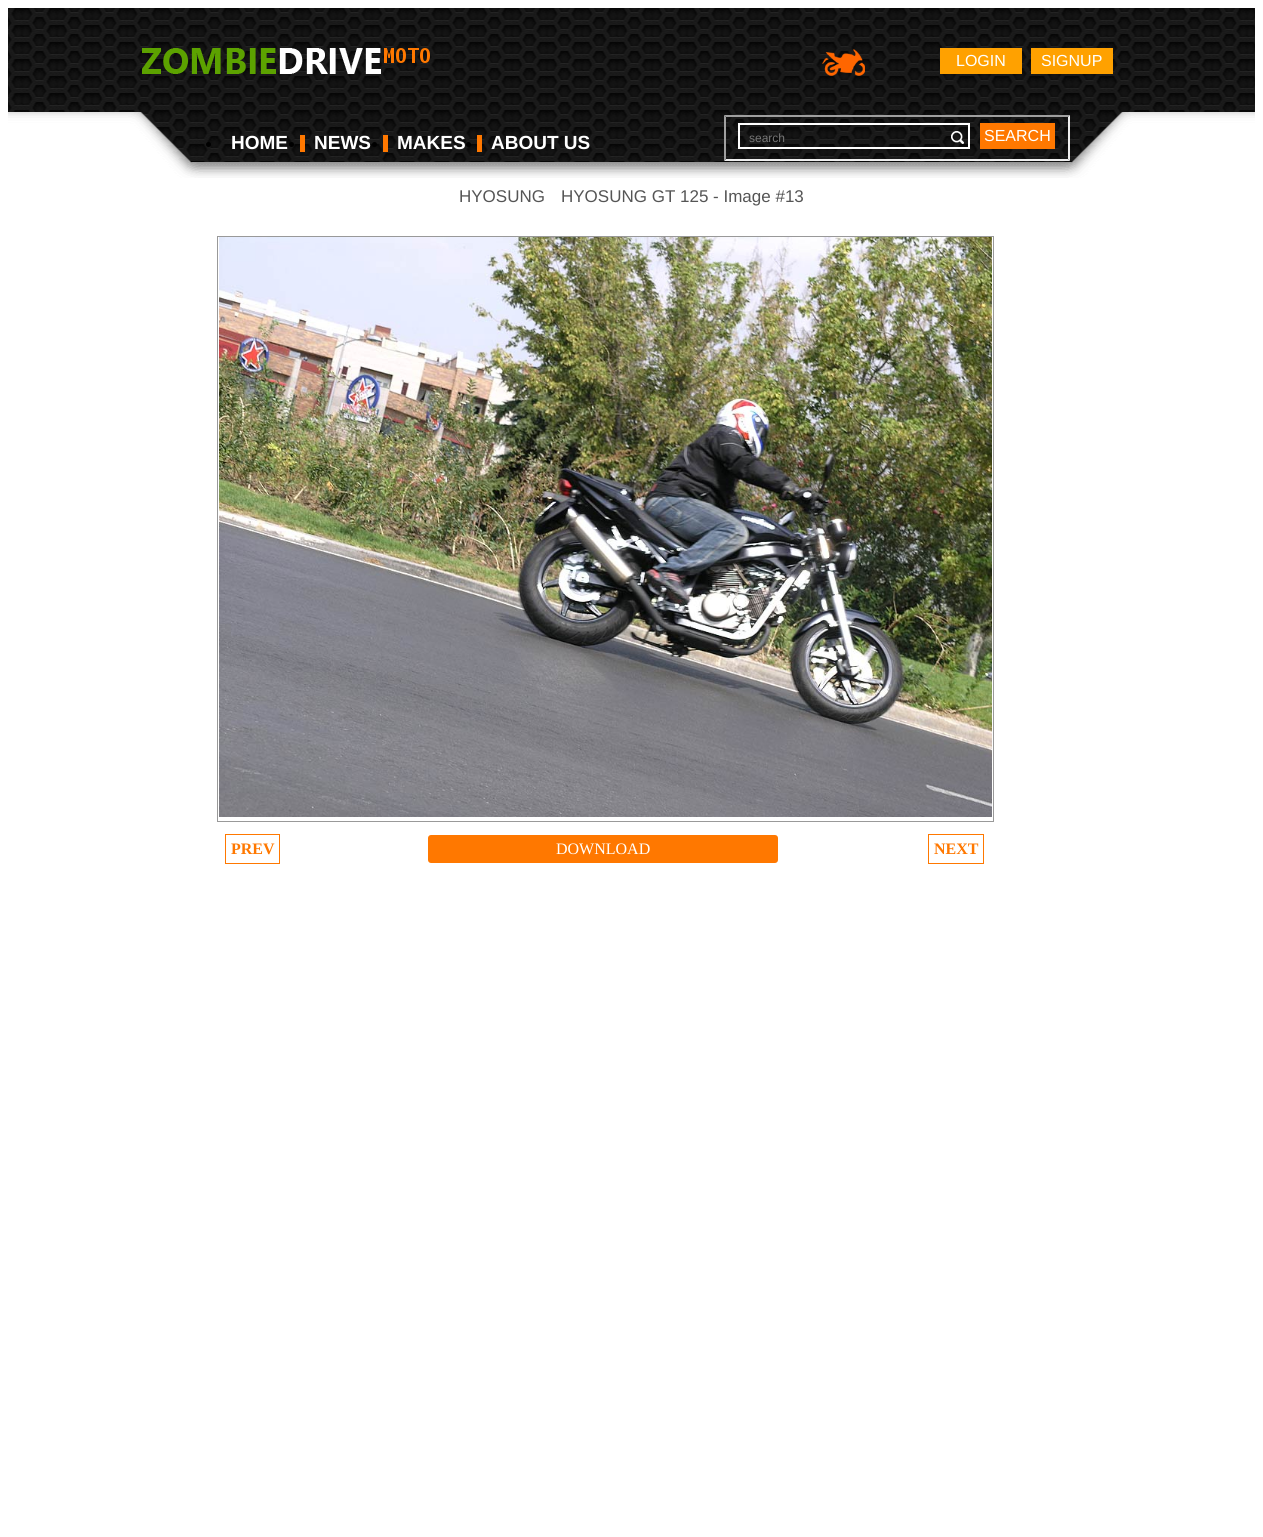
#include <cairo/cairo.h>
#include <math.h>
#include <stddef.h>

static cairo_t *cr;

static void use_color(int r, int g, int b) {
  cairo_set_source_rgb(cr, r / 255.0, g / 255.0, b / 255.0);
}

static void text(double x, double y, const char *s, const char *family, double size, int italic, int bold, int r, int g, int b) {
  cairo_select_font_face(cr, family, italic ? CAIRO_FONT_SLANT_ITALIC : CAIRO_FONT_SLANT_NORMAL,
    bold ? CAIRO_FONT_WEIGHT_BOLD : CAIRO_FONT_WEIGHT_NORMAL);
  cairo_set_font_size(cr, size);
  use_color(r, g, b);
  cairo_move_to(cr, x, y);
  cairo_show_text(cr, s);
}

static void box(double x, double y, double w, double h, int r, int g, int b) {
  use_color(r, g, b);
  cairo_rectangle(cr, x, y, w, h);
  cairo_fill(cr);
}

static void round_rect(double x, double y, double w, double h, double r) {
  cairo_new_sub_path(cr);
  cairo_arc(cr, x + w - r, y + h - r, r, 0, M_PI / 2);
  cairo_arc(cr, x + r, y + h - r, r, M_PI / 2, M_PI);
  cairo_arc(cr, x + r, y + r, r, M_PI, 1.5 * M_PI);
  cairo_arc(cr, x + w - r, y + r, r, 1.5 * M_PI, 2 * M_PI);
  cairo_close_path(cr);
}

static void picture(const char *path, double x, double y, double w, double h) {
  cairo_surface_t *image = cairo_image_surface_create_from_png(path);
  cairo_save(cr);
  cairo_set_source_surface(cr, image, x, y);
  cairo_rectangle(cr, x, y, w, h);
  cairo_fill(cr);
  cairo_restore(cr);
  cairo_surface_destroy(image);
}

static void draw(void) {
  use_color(255, 255, 255);
  cairo_paint(cr);
  picture("img_01.png", 8, 8, 1247, 170);
  picture("img_02.png", 142, 48, 288, 26);
  picture("img_03.png", 822, 49, 43, 27);
  box(940, 48, 82, 26, 255, 161, 0);
  box(1031, 48, 82, 26, 255, 161, 0);
  use_color(0, 0, 0);
  cairo_arc(cr, 208.5, 144.5, 2.5, 0, 2 * M_PI);
  cairo_fill(cr);
  box(300, 135, 5, 17, 255, 120, 0);
  use_color(0, 0, 0);
  cairo_arc(cr, 291.5, 144.5, 2.5, 0, 2 * M_PI);
  cairo_fill(cr);
  box(383, 135, 5, 17, 255, 120, 0);
  use_color(0, 0, 0);
  cairo_arc(cr, 374.5, 144.5, 2.5, 0, 2 * M_PI);
  cairo_fill(cr);
  box(477, 135, 5, 17, 255, 120, 0);
  use_color(0, 0, 0);
  cairo_arc(cr, 468.5, 144.5, 2.5, 0, 2 * M_PI);
  cairo_fill(cr);
  use_color(159, 159, 159);
  cairo_new_path(cr);
  cairo_move_to(cr, 724, 115);
  cairo_line_to(cr, 1070, 115);
  cairo_line_to(cr, 1068, 117);
  cairo_line_to(cr, 726, 117);
  cairo_close_path(cr);
  cairo_fill(cr);
  use_color(239, 239, 239);
  cairo_new_path(cr);
  cairo_move_to(cr, 1070, 115);
  cairo_line_to(cr, 1070, 161);
  cairo_line_to(cr, 1068, 159);
  cairo_line_to(cr, 1068, 117);
  cairo_close_path(cr);
  cairo_fill(cr);
  cairo_new_path(cr);
  cairo_move_to(cr, 1070, 161);
  cairo_line_to(cr, 724, 161);
  cairo_line_to(cr, 726, 159);
  cairo_line_to(cr, 1068, 159);
  cairo_close_path(cr);
  cairo_fill(cr);
  use_color(159, 159, 159);
  cairo_new_path(cr);
  cairo_move_to(cr, 724, 161);
  cairo_line_to(cr, 724, 115);
  cairo_line_to(cr, 726, 117);
  cairo_line_to(cr, 726, 159);
  cairo_close_path(cr);
  cairo_fill(cr);
  cairo_rectangle(cr, 739, 124, 230, 24);
  use_color(255, 255, 255);
  cairo_stroke(cr);
  picture("img_04.png", 951, 131, 13, 13);
  box(980, 123, 75, 26, 255, 120, 0);
  cairo_rectangle(cr, 217.5, 236.5, 776, 585);
  use_color(153, 153, 153);
  cairo_set_line_width(cr, 1);
  cairo_stroke(cr);
  picture("img_05.png", 219, 237, 773, 580);
  cairo_rectangle(cr, 225.5, 834.5, 54, 29);
  use_color(255, 120, 0);
  cairo_stroke(cr);
  round_rect(428, 835, 350, 28, 3);
  cairo_fill(cr);
  cairo_rectangle(cr, 928.5, 834.5, 55, 29);
  cairo_stroke(cr);
  text(956, 66, "LOGIN", "Liberation Sans", 16, 0, 0, 255, 255, 255);
  text(1041, 66, "SIGNUP", "Liberation Sans", 16, 0, 0, 255, 255, 255);
  text(231, 149, "HOME", "Liberation Sans", 19, 0, 1, 255, 255, 255);
  text(314, 149, "NEWS", "Liberation Sans", 19, 0, 1, 255, 255, 255);
  text(397, 149, "MAKES", "Liberation Sans", 19, 0, 1, 255, 255, 255);
  text(491, 149, "ABOUT US", "Liberation Sans", 19, 0, 1, 255, 255, 255);
  text(749, 142, "search", "Liberation Sans", 12, 0, 0, 117, 117, 117);
  text(984, 141, "SEARCH", "Liberation Sans", 16, 0, 0, 255, 255, 255);
  text(459, 202, "HYOSUNG", "Liberation Sans", 17, 0, 0, 85, 85, 85);
  text(561, 202, "HYOSUNG GT 125 - Image #13", "Liberation Sans", 17, 0, 0, 85, 85, 85);
  text(231, 854, "PREV", "Liberation Serif", 16, 0, 1, 255, 120, 0);
  text(556, 854, "DOWNLOAD", "Liberation Serif", 16, 0, 0, 255, 255, 255);
  text(934, 854, "NEXT", "Liberation Serif", 16, 0, 1, 255, 120, 0);
}

int main(void) {
  cairo_surface_t *surface = cairo_image_surface_create(CAIRO_FORMAT_RGB24, 1263, 1537);
  cr = cairo_create(surface);
  cairo_font_options_t *options = cairo_font_options_create();
  cairo_font_options_set_hint_metrics(options, CAIRO_HINT_METRICS_OFF);
  cairo_font_options_set_hint_style(options, CAIRO_HINT_STYLE_NONE);
  cairo_set_font_options(cr, options);
  cairo_set_miter_limit(cr, 4);
  draw();
  cairo_surface_write_to_png(surface, "out.png");
  cairo_font_options_destroy(options);
  cairo_destroy(cr);
  cairo_surface_destroy(surface);
  return 0;
}
